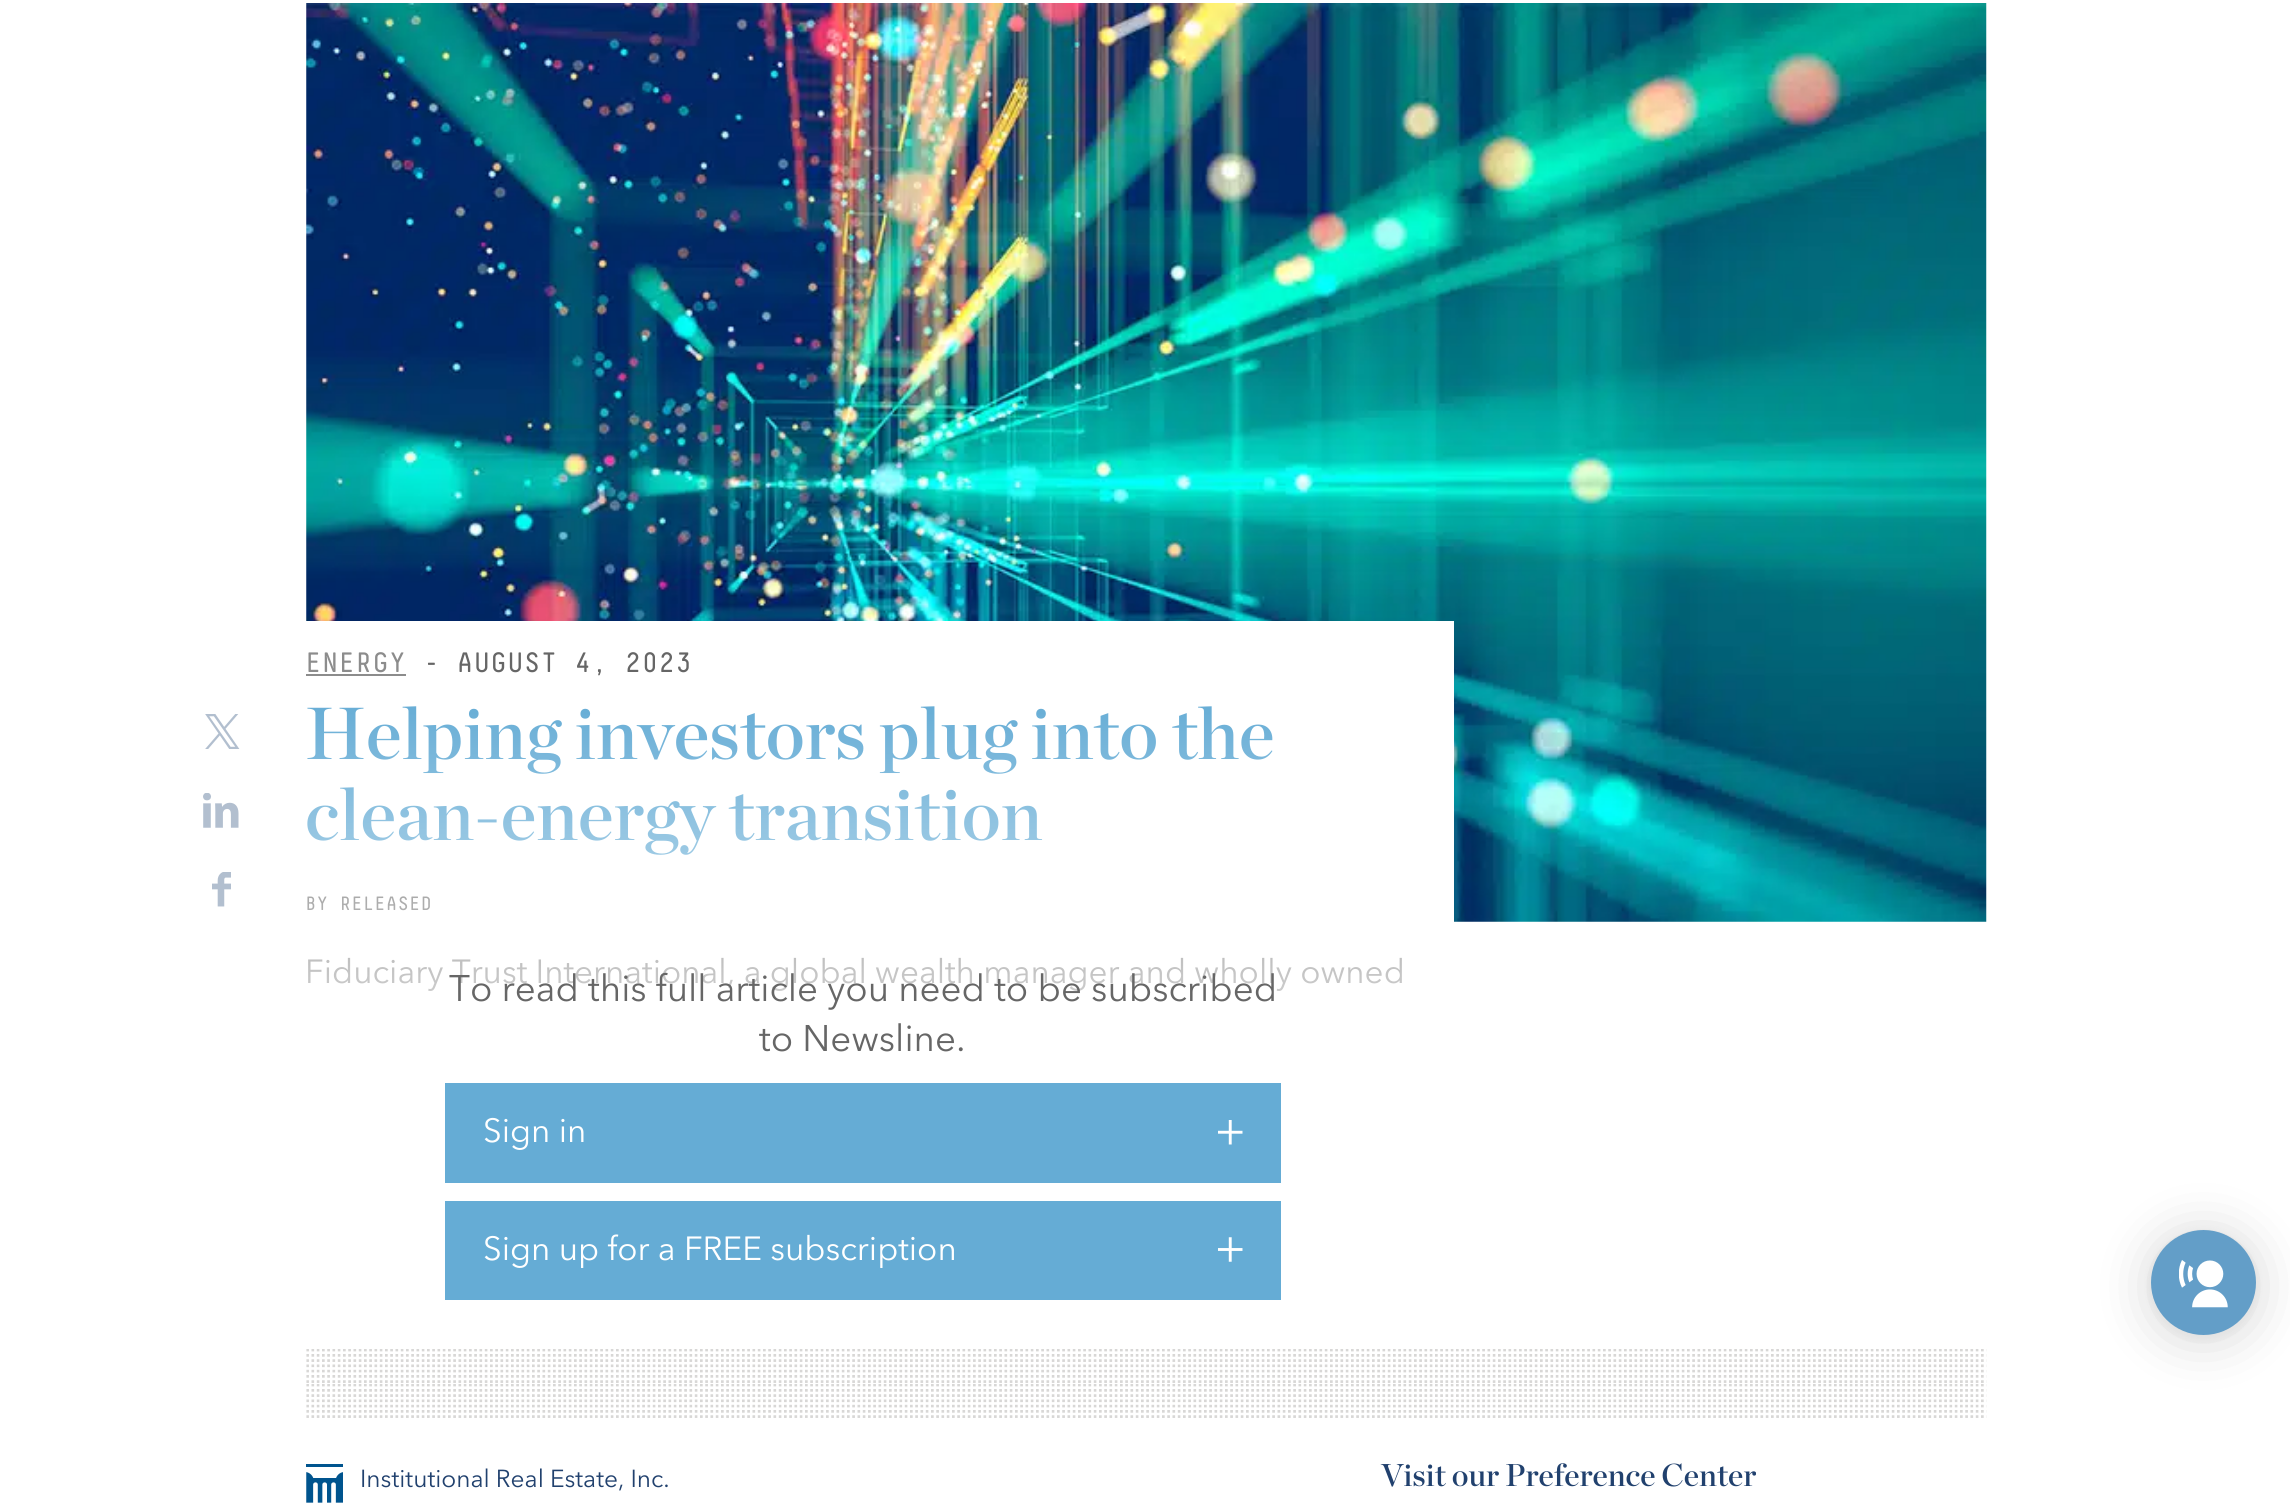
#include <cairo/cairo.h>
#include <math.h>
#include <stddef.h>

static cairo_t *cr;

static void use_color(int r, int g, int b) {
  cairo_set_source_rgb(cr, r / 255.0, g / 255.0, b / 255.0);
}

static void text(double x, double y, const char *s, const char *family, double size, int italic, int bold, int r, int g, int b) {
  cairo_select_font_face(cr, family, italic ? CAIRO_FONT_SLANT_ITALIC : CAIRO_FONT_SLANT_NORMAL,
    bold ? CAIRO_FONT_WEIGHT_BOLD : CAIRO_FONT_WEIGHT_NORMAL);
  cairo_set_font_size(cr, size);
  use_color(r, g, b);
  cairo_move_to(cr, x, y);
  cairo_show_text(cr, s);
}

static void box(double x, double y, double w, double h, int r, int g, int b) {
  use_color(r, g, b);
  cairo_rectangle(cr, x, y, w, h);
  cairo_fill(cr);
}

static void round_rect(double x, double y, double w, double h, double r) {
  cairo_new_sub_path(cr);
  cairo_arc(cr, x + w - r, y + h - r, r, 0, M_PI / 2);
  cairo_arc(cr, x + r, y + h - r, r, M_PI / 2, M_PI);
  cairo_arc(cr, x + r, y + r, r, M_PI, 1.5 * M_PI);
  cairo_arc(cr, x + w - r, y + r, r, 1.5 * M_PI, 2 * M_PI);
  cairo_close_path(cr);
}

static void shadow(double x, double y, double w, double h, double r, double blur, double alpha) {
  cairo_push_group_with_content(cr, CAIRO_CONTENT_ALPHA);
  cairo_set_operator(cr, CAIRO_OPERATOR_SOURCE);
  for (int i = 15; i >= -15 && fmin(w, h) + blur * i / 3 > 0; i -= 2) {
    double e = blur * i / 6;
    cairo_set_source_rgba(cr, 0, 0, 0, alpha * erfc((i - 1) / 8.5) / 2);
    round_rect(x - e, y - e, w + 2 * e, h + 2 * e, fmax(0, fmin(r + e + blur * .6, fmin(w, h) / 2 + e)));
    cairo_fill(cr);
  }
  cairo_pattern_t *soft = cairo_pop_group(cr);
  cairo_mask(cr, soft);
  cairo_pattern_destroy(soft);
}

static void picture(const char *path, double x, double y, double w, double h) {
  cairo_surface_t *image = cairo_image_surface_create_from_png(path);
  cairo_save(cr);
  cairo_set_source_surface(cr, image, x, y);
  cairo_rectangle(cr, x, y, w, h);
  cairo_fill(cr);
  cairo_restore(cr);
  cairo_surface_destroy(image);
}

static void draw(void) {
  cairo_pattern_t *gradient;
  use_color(255, 255, 255);
  cairo_paint(cr);
  picture("img_01.png", 306, 3, 1681, 919);
  box(306, 621, 1148, 301, 255, 255, 255);
  box(306, 674, 100, 2, 140, 140, 140);
  picture("img_02.png", 205, 714, 35, 35);
  picture("img_03.png", 203, 793, 36, 35);
  picture("img_04.png", 212, 872, 19, 35);
  box(445, 1083, 836, 100, 101, 172, 213);
  picture("img_05.png", 1218, 1120, 25, 25);
  box(445, 1201, 836, 99, 101, 172, 213);
  picture("img_06.png", 1218, 1237, 25, 25);
  picture("img_07.png", 306, 1349, 1681, 34);
  picture("img_07.png", 306, 1384, 1681, 34);
  picture("img_08.png", 306, 1464, 37, 39);
  use_color(0, 0, 0);
  shadow(2151, 1234, 105, 105, 52.5, 28, 0.16);
  shadow(2151, 1232, 105, 105, 52.5, 5, 0.06);
  use_color(99, 158, 200);
  cairo_arc(cr, 2203.5, 1282.5, 52.5, 0, 2 * M_PI);
  cairo_fill(cr);
  picture("img_09.png", 2179, 1260, 49, 48);
  text(305, 672, "ENERGY", "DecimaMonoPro", 28, 0, 0, 140, 140, 140);
  text(423, 672, "- AUGUST 4, 2023", "DecimaMonoPro", 28, 0, 0, 102, 102, 102);
  text(305, 759, "Helping investors plug into the", "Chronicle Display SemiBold", 73.5, 0, 0, 101, 172, 213);
  text(305, 840, "clean-energy transition", "Chronicle Display SemiBold", 73.5, 0, 0, 101, 172, 213);
  text(305, 910, "BY RELEASED", "DecimaMonoPro", 19.25, 0, 0, 102, 102, 102);
  text(305, 983, "Fiduciary Trust International, a global wealth manager and wholly owned", "Avenir Next", 33.25, 0, 0, 102, 102, 102);
  gradient = cairo_pattern_create_linear(863, 697, 863, 1332);
  cairo_pattern_add_color_stop_rgba(gradient, 0, 1, 1, 1, 0);
  cairo_pattern_add_color_stop_rgba(gradient, 0.7, 1, 1, 1, 1);
  cairo_set_source(cr, gradient);
  cairo_pattern_destroy(gradient);
  cairo_rectangle(cr, 307, 707, 1096, 284);
  cairo_fill(cr);
  text(449, 1001, "To read this full article you need to be subscribed", "Avenir Next", 36.75, 0, 0, 102, 102, 102);
  text(759, 1051, "to Newsline.", "Avenir Next", 36.75, 0, 0, 102, 102, 102);
  text(483, 1142, "Sign in", "Avenir Next", 33.25, 0, 0, 255, 255, 255);
  text(483, 1260, "Sign up for a FREE subscription", "Avenir Next", 33.25, 0, 0, 255, 255, 255);
  text(360, 1487, "Institutional Real Estate, Inc.", "Avenir Next", 24.5, 0, 0, 33, 65, 110);
  text(1381, 1486, "Visit our Preference Center", "Chronicle Display SemiBold", 31.5, 0, 0, 33, 65, 110);
}

int main(void) {
  cairo_surface_t *surface = cairo_image_surface_create(CAIRO_FORMAT_RGB24, 2290, 1509);
  cr = cairo_create(surface);
  cairo_font_options_t *options = cairo_font_options_create();
  cairo_font_options_set_hint_metrics(options, CAIRO_HINT_METRICS_OFF);
  cairo_font_options_set_hint_style(options, CAIRO_HINT_STYLE_NONE);
  cairo_set_font_options(cr, options);
  cairo_set_miter_limit(cr, 4);
  draw();
  cairo_surface_write_to_png(surface, "out.png");
  cairo_font_options_destroy(options);
  cairo_destroy(cr);
  cairo_surface_destroy(surface);
  return 0;
}
